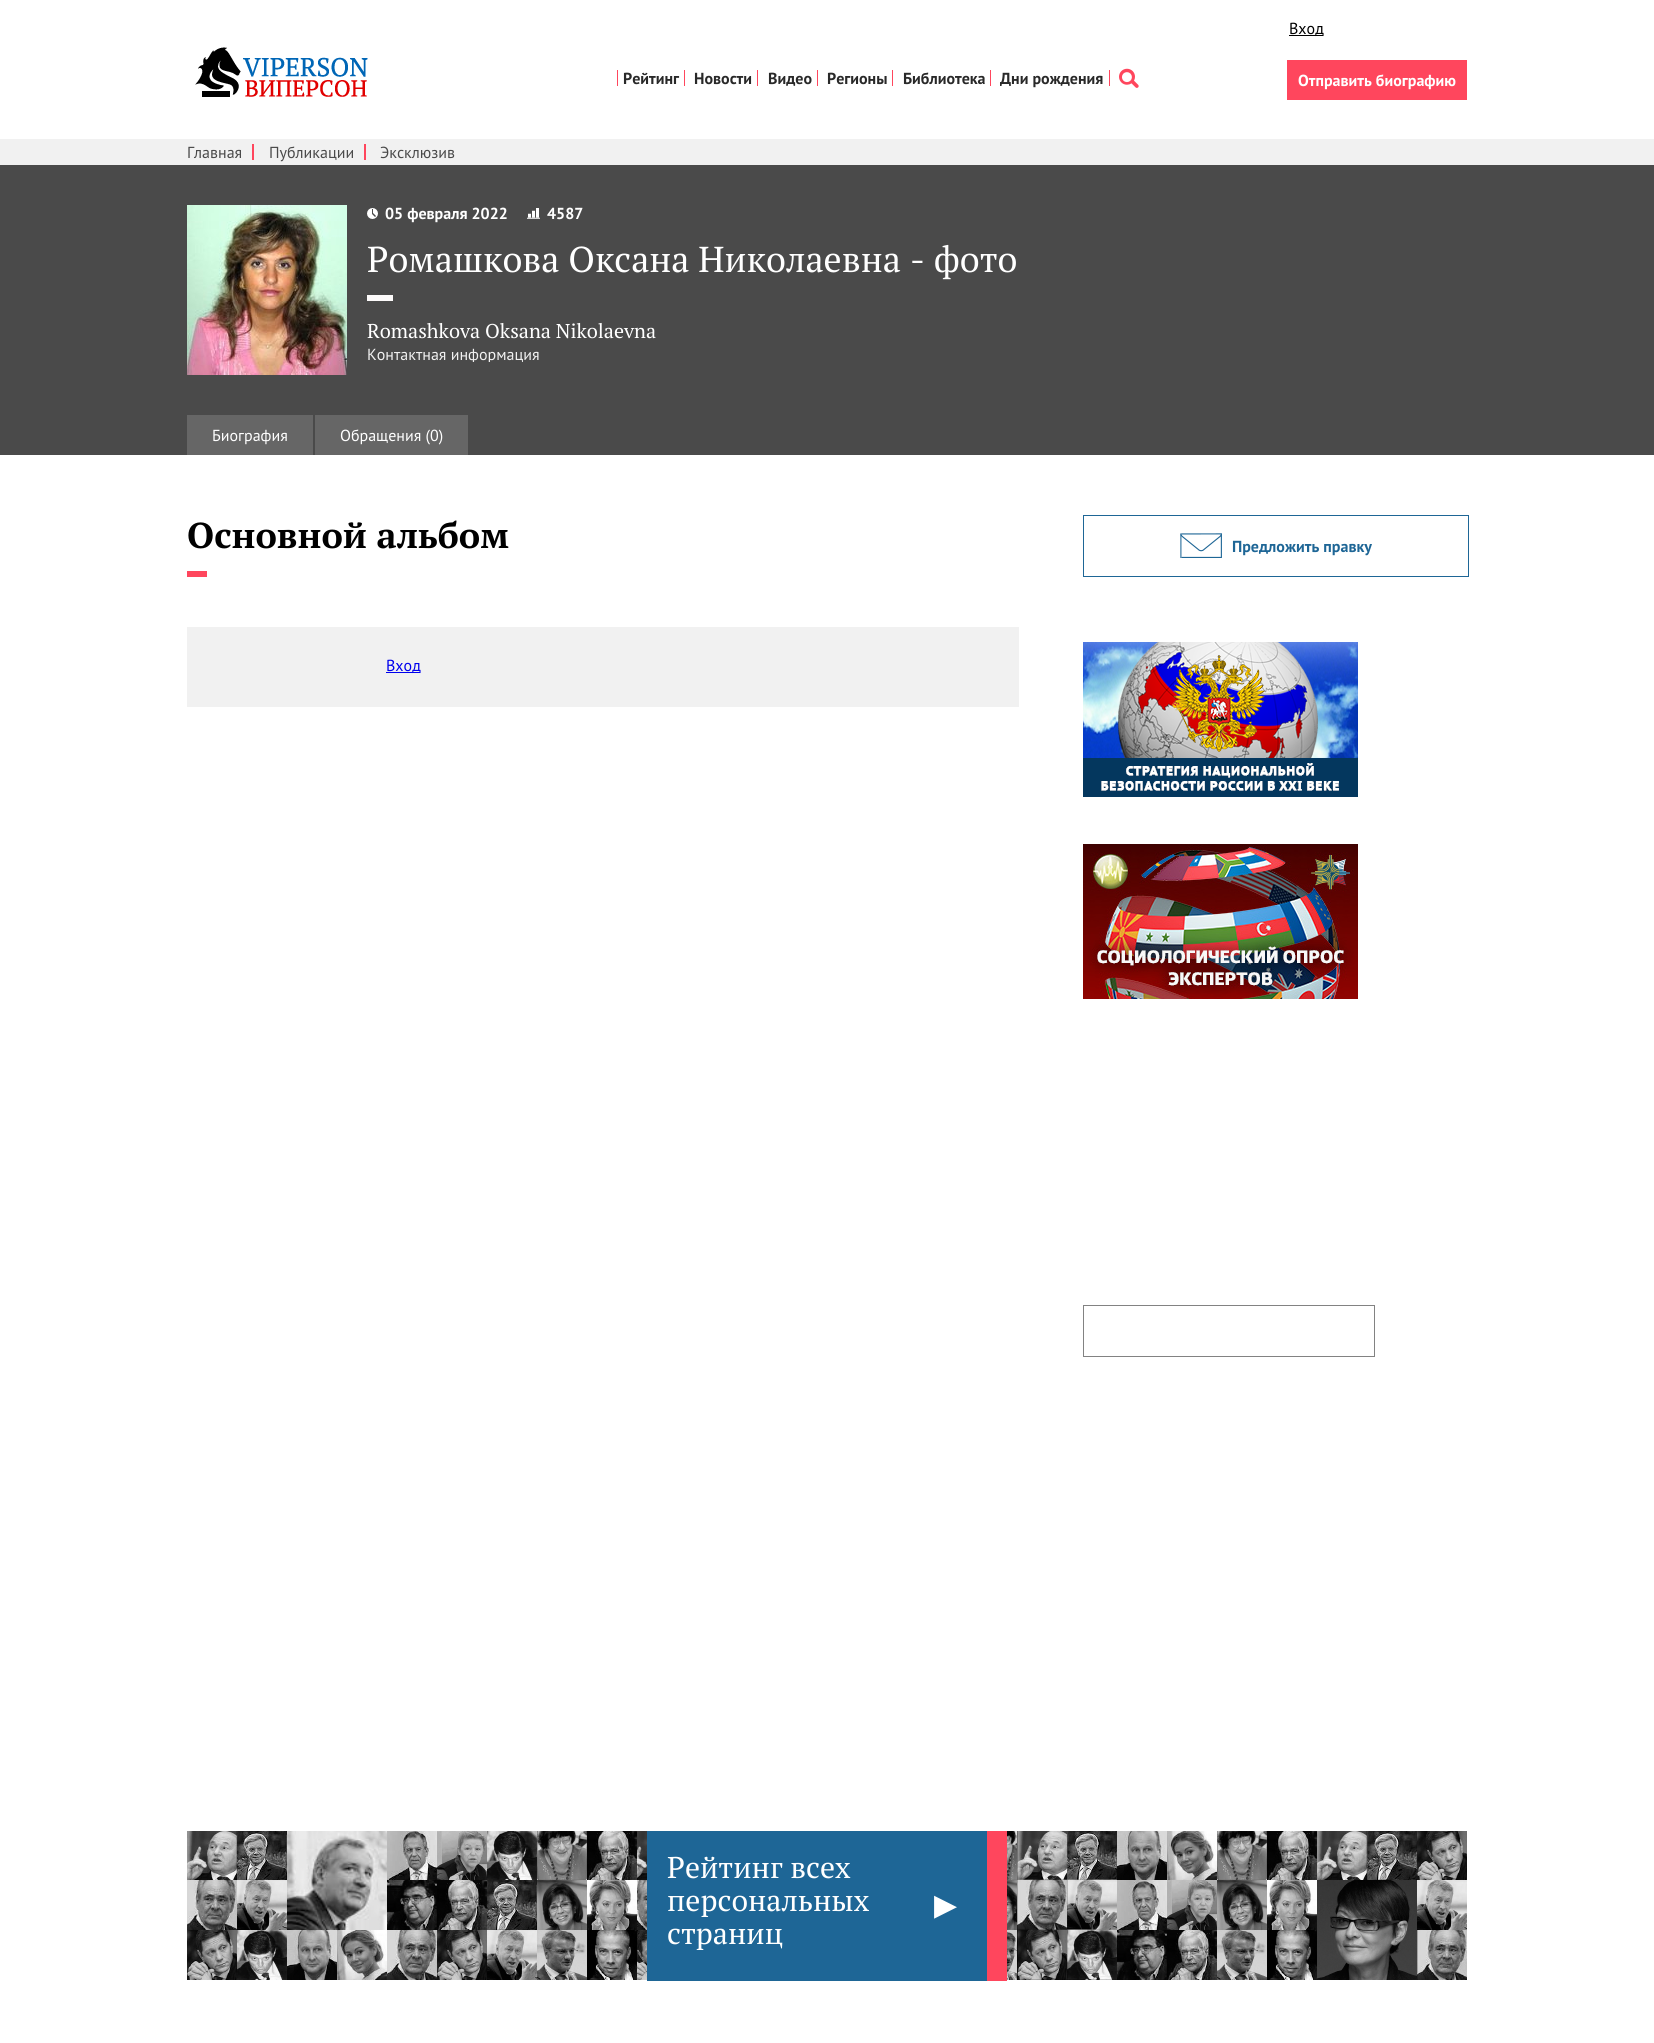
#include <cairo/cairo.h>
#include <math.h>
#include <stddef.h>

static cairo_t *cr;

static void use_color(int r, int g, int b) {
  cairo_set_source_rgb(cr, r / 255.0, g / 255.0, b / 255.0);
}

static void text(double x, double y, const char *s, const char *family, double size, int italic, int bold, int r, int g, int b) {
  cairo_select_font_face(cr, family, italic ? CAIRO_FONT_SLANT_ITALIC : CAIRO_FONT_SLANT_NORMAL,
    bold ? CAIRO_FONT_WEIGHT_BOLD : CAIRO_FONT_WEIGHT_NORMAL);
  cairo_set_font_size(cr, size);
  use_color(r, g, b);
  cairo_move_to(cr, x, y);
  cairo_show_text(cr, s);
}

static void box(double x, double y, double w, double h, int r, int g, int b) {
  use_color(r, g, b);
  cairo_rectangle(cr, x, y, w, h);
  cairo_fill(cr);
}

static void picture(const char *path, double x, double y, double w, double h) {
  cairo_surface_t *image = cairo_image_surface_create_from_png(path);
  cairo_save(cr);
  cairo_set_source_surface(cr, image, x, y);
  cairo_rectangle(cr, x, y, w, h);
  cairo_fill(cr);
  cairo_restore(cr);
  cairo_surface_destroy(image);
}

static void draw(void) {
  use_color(255, 255, 255);
  cairo_paint(cr);
  picture("img_01.png", 195, 47, 173, 50);
  box(1289, 35, 34, 1, 0, 0, 0);
  box(684, 70, 1, 16, 255, 70, 93);
  box(617, 70, 1, 16, 255, 70, 93);
  box(757, 70, 1, 16, 255, 70, 93);
  box(817, 70, 1, 16, 255, 70, 93);
  box(892, 70, 1, 16, 255, 70, 93);
  box(990, 70, 1, 16, 255, 70, 93);
  box(1109, 70, 1, 16, 255, 70, 93);
  picture("img_02.png", 1119, 68, 20, 20);
  box(1287, 60, 180, 40, 255, 70, 93);
  box(0, 139, 1654, 26, 241, 241, 241);
  box(252, 144, 2, 16, 255, 70, 93);
  box(364, 144, 2, 16, 255, 70, 93);
  box(0, 165, 1654, 290, 74, 74, 74);
  picture("img_03.png", 187, 205, 160, 170);
  picture("img_04.png", 367, 208, 11, 11);
  picture("img_05.png", 527, 208, 13, 11);
  box(367, 295, 26, 6, 253, 251, 251);
  box(187, 415, 126, 40, 102, 102, 102);
  box(315, 415, 153, 40, 102, 102, 102);
  box(187, 571, 20, 6, 255, 70, 93);
  box(187, 627, 832, 80, 241, 241, 241);
  box(386, 672, 34, 1, 0, 0, 238);
  cairo_rectangle(cr, 1083.5, 515.5, 385, 61);
  use_color(30, 102, 150);
  cairo_set_line_width(cr, 1);
  cairo_stroke(cr);
  picture("img_06.png", 1180, 533, 42, 25);
  picture("img_07.png", 1083, 642, 275, 155);
  picture("img_08.png", 1083, 844, 275, 155);
  cairo_rectangle(cr, 1083.5, 1305.5, 291, 51);
  use_color(130, 130, 130);
  cairo_stroke(cr);
  picture("img_09.png", 187, 1831, 1280, 149);
  box(647, 1831, 340, 150, 30, 102, 150);
  box(987, 1831, 20, 150, 255, 70, 93);
  text(1289, 34, "Вход", "PT Sans", 16, 0, 0, 0, 0, 0);
  text(623, 84, "Рейтинг", "PT Sans", 16, 0, 1, 41, 41, 41);
  text(694, 84, "Новости", "PT Sans", 16, 0, 1, 41, 41, 41);
  text(768, 84, "Видео", "PT Sans", 16, 0, 1, 41, 41, 41);
  text(827, 84, "Регионы", "PT Sans", 16, 0, 1, 41, 41, 41);
  text(903, 84, "Библиотека", "PT Sans", 16, 0, 1, 41, 41, 41);
  text(1000, 84, "Дни рождения", "PT Sans", 16, 0, 1, 41, 41, 41);
  text(1298, 86, "Отправить биографию", "PT Sans", 16, 0, 1, 255, 255, 255);
  text(187, 158, "Главная", "PT Sans", 16, 0, 0, 74, 74, 74);
  text(269, 158, "Публикации", "PT Sans", 16, 0, 0, 74, 74, 74);
  text(380, 158, "Эксклюзив", "PT Sans", 16, 0, 0, 74, 74, 74);
  text(385, 219, "05 февраля 2022", "PT Sans", 16, 0, 1, 255, 255, 255);
  text(547, 219, "4587", "PT Sans", 16, 0, 1, 255, 255, 255);
  text(367, 272, "Ромашкова Оксана Николаевна - фото", "PT Serif", 36, 0, 0, 255, 255, 255);
  text(367, 338, "Romashkova Oksana Nikolaevna", "PT Serif", 20, 0, 0, 255, 255, 255);
  cairo_save(cr);
  cairo_rectangle(cr, 367, 205, 1100, 157);
  cairo_clip(cr);
  text(367, 360, "Контактная информация", "PT Sans", 16, 0, 0, 241, 241, 241);
  cairo_restore(cr);
  text(212, 441, "Биография", "PT Sans", 16, 0, 0, 255, 255, 255);
  text(340, 441, "Обращения (0)", "PT Sans", 16, 0, 0, 255, 255, 255);
  text(187, 548, "Основной альбом", "PT Serif", 36, 0, 1, 0, 0, 0);
  text(386, 671, "Вход", "PT Sans", 16, 0, 0, 0, 0, 238);
  text(1232, 552, "Предложить правку", "PT Sans", 16, 0, 1, 30, 102, 150);
  text(667, 1878, "Рейтинг всех", "PT Serif", 30, 0, 0, 255, 255, 255);
  text(667, 1911, "персональных", "PT Serif", 30, 0, 0, 255, 255, 255);
  text(934, 1915, "▶", "DejaVu Sans", 30, 0, 0, 255, 255, 255);
  text(667, 1944, "страниц", "PT Serif", 30, 0, 0, 255, 255, 255);
}

int main(void) {
  cairo_surface_t *surface = cairo_image_surface_create(CAIRO_FORMAT_RGB24, 1654, 2043);
  cr = cairo_create(surface);
  cairo_font_options_t *options = cairo_font_options_create();
  cairo_font_options_set_hint_metrics(options, CAIRO_HINT_METRICS_OFF);
  cairo_font_options_set_hint_style(options, CAIRO_HINT_STYLE_NONE);
  cairo_set_font_options(cr, options);
  cairo_set_miter_limit(cr, 4);
  draw();
  cairo_surface_write_to_png(surface, "out.png");
  cairo_font_options_destroy(options);
  cairo_destroy(cr);
  cairo_surface_destroy(surface);
  return 0;
}
